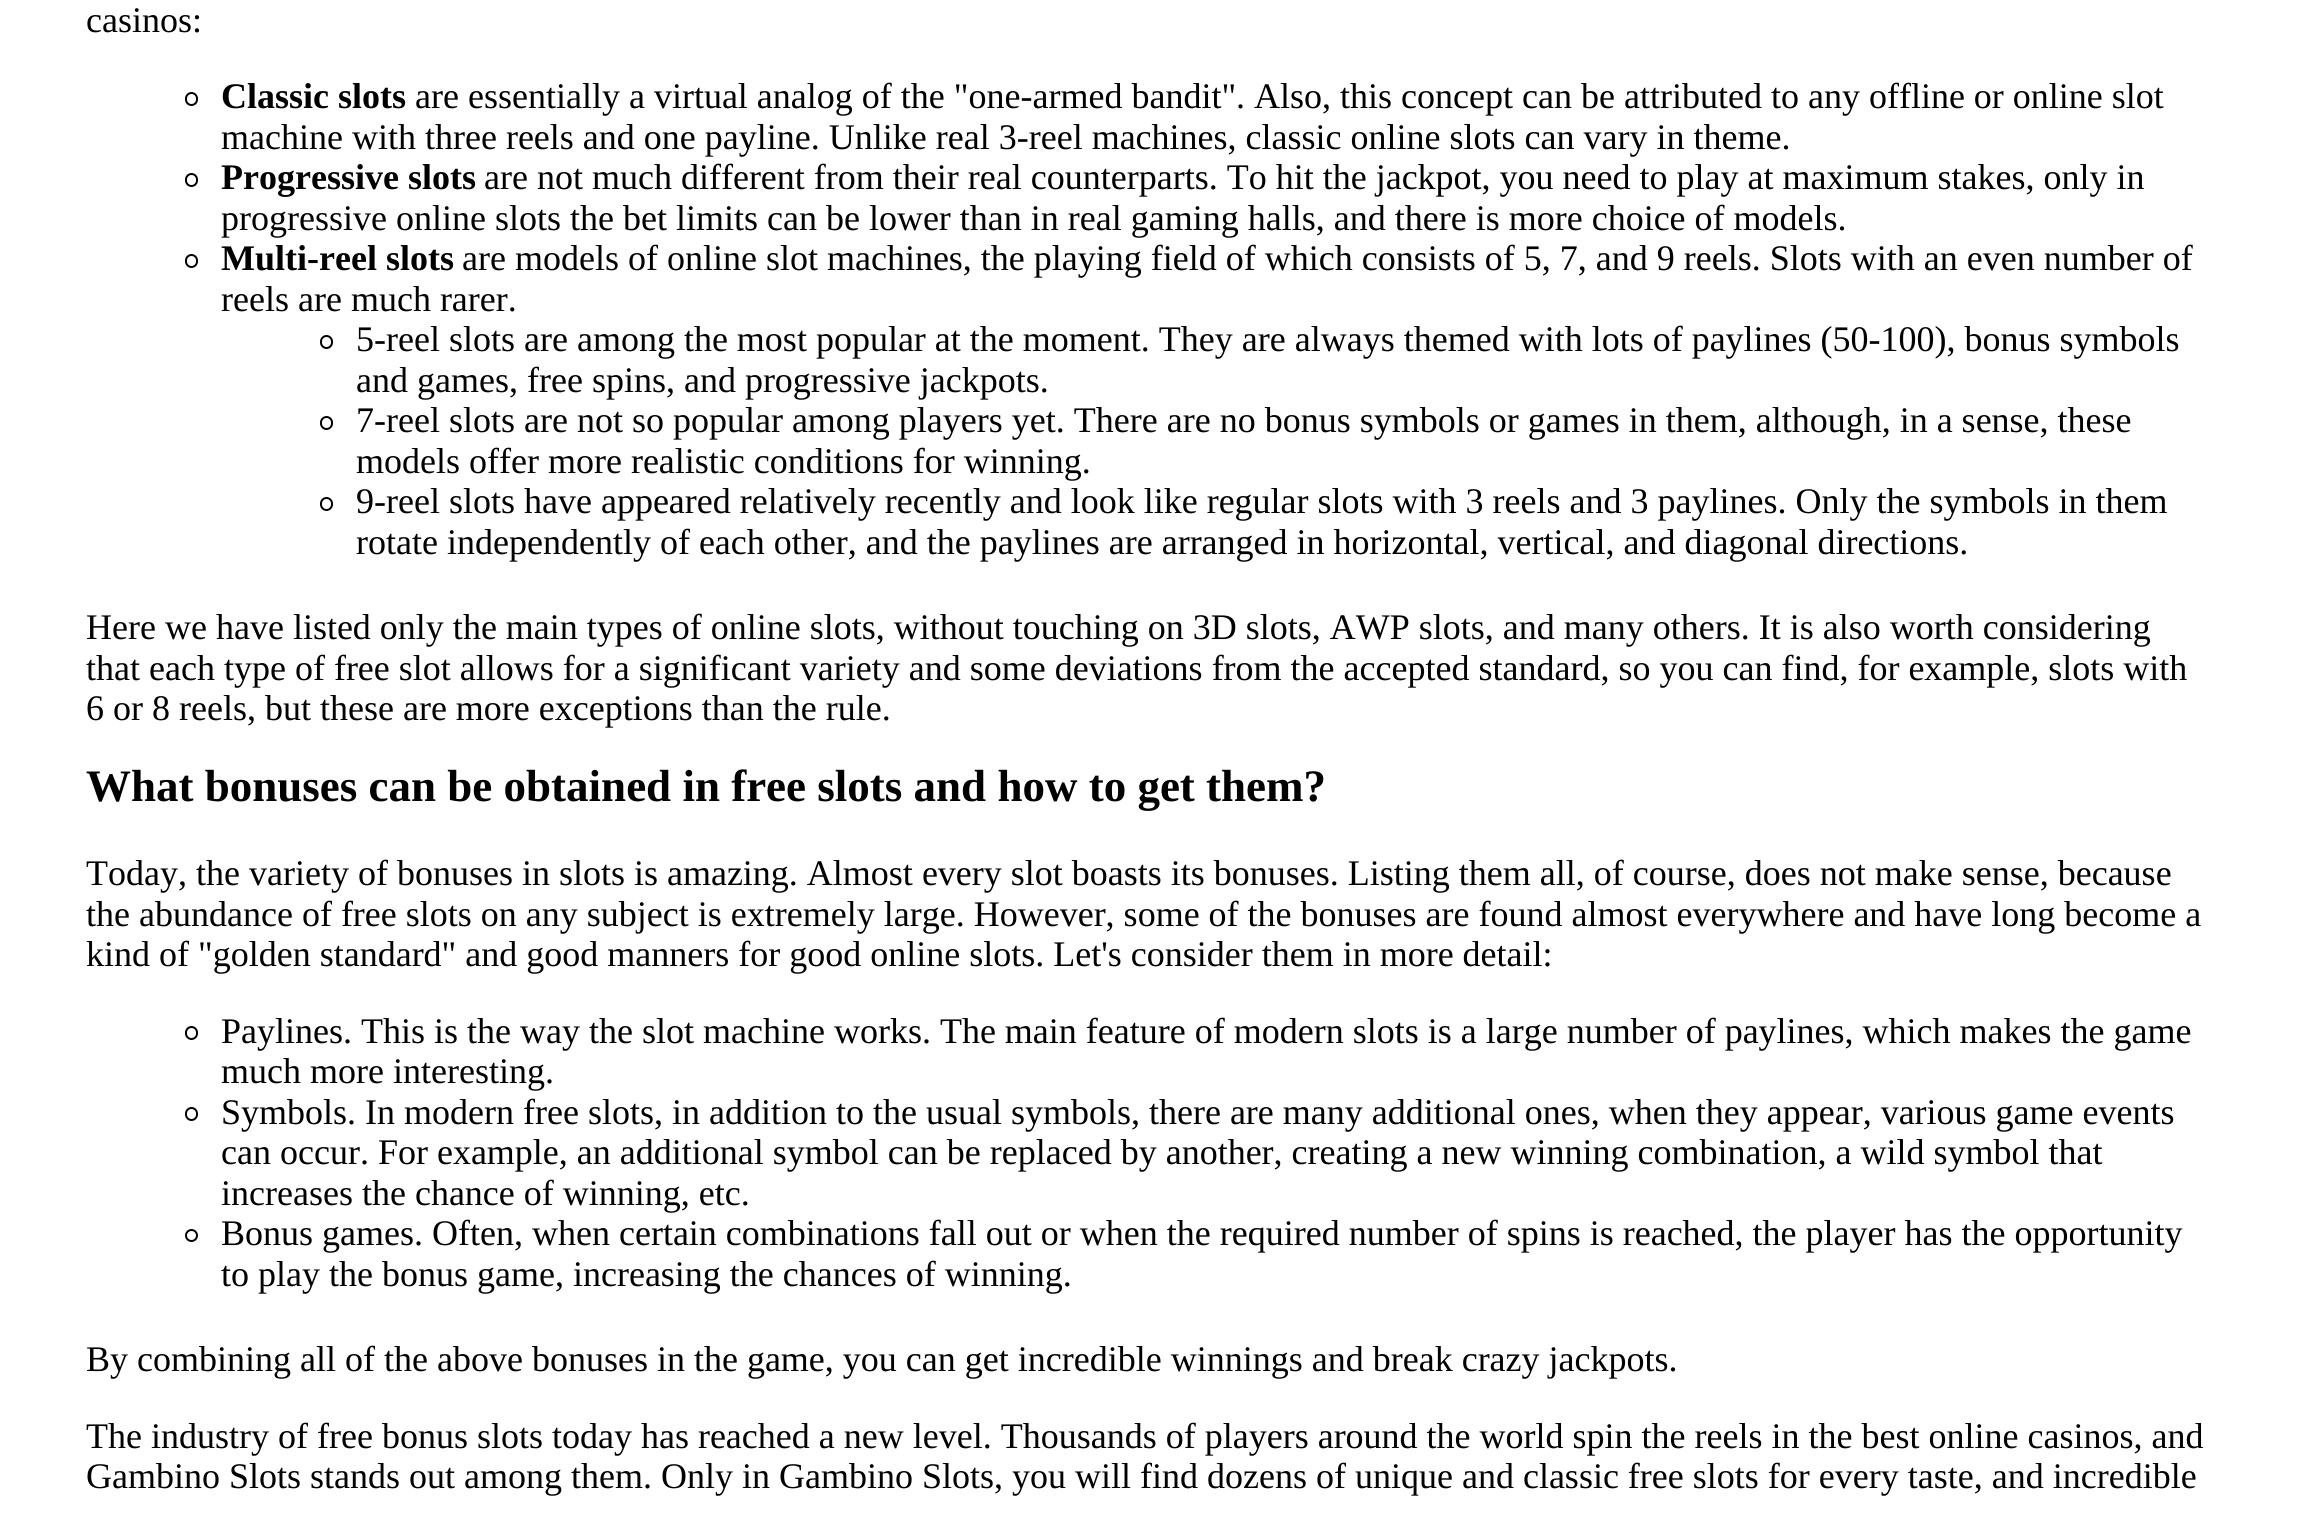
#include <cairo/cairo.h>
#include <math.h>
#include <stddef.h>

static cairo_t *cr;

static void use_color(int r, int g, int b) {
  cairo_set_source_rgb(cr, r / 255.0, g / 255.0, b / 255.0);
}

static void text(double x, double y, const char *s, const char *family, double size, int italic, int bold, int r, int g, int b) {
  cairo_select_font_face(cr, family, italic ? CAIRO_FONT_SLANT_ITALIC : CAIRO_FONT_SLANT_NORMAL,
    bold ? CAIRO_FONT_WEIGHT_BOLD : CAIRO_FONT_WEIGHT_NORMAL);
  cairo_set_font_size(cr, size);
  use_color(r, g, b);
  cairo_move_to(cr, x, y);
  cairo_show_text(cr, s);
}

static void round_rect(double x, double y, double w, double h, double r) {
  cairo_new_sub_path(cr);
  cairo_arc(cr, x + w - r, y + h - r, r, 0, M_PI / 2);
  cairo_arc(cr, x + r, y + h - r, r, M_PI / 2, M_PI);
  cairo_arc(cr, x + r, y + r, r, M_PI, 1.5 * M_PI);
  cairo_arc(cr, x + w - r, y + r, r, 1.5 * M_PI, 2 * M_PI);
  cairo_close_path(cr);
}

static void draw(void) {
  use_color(255, 255, 255);
  cairo_paint(cr);
  round_rect(186, 93, 11, 12, 5.5);
  use_color(0, 0, 0);
  cairo_stroke(cr);
  round_rect(186, 174, 11, 12, 5.5);
  cairo_stroke(cr);
  round_rect(186, 255, 11, 12, 5.5);
  cairo_stroke(cr);
  round_rect(321, 336, 11, 12, 5.5);
  cairo_stroke(cr);
  round_rect(321, 417, 11, 12, 5.5);
  cairo_stroke(cr);
  round_rect(321, 498, 11, 12, 5.5);
  cairo_stroke(cr);
  round_rect(186, 1027, 11, 12, 5.5);
  cairo_stroke(cr);
  round_rect(186, 1108, 11, 12, 5.5);
  cairo_stroke(cr);
  cairo_arc(cr, 191.5, 1235.5, 5.5, 0, 2 * M_PI);
  cairo_stroke(cr);
  text(86, 32, "casinos:", "Liberation Serif", 36, 0, 0, 0, 0, 0);
  text(221, 108, "Classic slots", "Liberation Serif", 36, 0, 1, 0, 0, 0);
  text(415, 108, "are essentially a virtual analog of the \"one-armed bandit\". Also, this concept can be attributed to any offline or online slot", "Liberation Serif", 36, 0, 0, 0, 0, 0);
  text(221, 149, "machine with three reels and one payline. Unlike real 3-reel machines, classic online slots can vary in theme.", "Liberation Serif", 36, 0, 0, 0, 0, 0);
  text(221, 189, "Progressive slots", "Liberation Serif", 36, 0, 1, 0, 0, 0);
  text(484, 189, "are not much different from their real counterparts. To hit the jackpot, you need to play at maximum stakes, only in", "Liberation Serif", 36, 0, 0, 0, 0, 0);
  text(221, 230, "progressive online slots the bet limits can be lower than in real gaming halls, and there is more choice of models.", "Liberation Serif", 36, 0, 0, 0, 0, 0);
  text(221, 270, "Multi-reel slots", "Liberation Serif", 36, 0, 1, 0, 0, 0);
  text(462, 270, "are models of online slot machines, the playing field of which consists of 5, 7, and 9 reels. Slots with an even number of", "Liberation Serif", 36, 0, 0, 0, 0, 0);
  text(221, 311, "reels are much rarer.", "Liberation Serif", 36, 0, 0, 0, 0, 0);
  text(356, 351, "5-reel slots are among the most popular at the moment. They are always themed with lots of paylines (50-100), bonus symbols", "Liberation Serif", 36, 0, 0, 0, 0, 0);
  text(356, 392, "and games, free spins, and progressive jackpots.", "Liberation Serif", 36, 0, 0, 0, 0, 0);
  text(356, 432, "7-reel slots are not so popular among players yet. There are no bonus symbols or games in them, although, in a sense, these", "Liberation Serif", 36, 0, 0, 0, 0, 0);
  text(356, 473, "models offer more realistic conditions for winning.", "Liberation Serif", 36, 0, 0, 0, 0, 0);
  text(356, 513, "9-reel slots have appeared relatively recently and look like regular slots with 3 reels and 3 paylines. Only the symbols in them", "Liberation Serif", 36, 0, 0, 0, 0, 0);
  text(356, 554, "rotate independently of each other, and the paylines are arranged in horizontal, vertical, and diagonal directions.", "Liberation Serif", 36, 0, 0, 0, 0, 0);
  text(86, 639, "Here we have listed only the main types of online slots, without touching on 3D slots, AWP slots, and many others. It is also worth considering", "Liberation Serif", 36, 0, 0, 0, 0, 0);
  text(86, 680, "that each type of free slot allows for a significant variety and some deviations from the accepted standard, so you can find, for example, slots with", "Liberation Serif", 36, 0, 0, 0, 0, 0);
  text(86, 720, "6 or 8 reels, but these are more exceptions than the rule.", "Liberation Serif", 36, 0, 0, 0, 0, 0);
  text(86, 801, "What bonuses can be obtained in free slots and how to get them?", "Liberation Serif", 45, 0, 1, 0, 0, 0);
  text(86, 885, "Today, the variety of bonuses in slots is amazing. Almost every slot boasts its bonuses. Listing them all, of course, does not make sense, because", "Liberation Serif", 36, 0, 0, 0, 0, 0);
  text(86, 926, "the abundance of free slots on any subject is extremely large. However, some of the bonuses are found almost everywhere and have long become a", "Liberation Serif", 36, 0, 0, 0, 0, 0);
  text(86, 966, "kind of \"golden standard\" and good manners for good online slots. Let's consider them in more detail:", "Liberation Serif", 36, 0, 0, 0, 0, 0);
  text(221, 1043, "Paylines. This is the way the slot machine works. The main feature of modern slots is a large number of paylines, which makes the game", "Liberation Serif", 36, 0, 0, 0, 0, 0);
  text(221, 1083, "much more interesting.", "Liberation Serif", 36, 0, 0, 0, 0, 0);
  text(221, 1124, "Symbols. In modern free slots, in addition to the usual symbols, there are many additional ones, when they appear, various game events", "Liberation Serif", 36, 0, 0, 0, 0, 0);
  text(221, 1164, "can occur. For example, an additional symbol can be replaced by another, creating a new winning combination, a wild symbol that", "Liberation Serif", 36, 0, 0, 0, 0, 0);
  text(221, 1205, "increases the chance of winning, etc.", "Liberation Serif", 36, 0, 0, 0, 0, 0);
  text(221, 1245, "Bonus games. Often, when certain combinations fall out or when the required number of spins is reached, the player has the opportunity", "Liberation Serif", 36, 0, 0, 0, 0, 0);
  text(221, 1286, "to play the bonus game, increasing the chances of winning.", "Liberation Serif", 36, 0, 0, 0, 0, 0);
  text(86, 1371, "By combining all of the above bonuses in the game, you can get incredible winnings and break crazy jackpots.", "Liberation Serif", 36, 0, 0, 0, 0, 0);
  text(86, 1448, "The industry of free bonus slots today has reached a new level. Thousands of players around the world spin the reels in the best online casinos, and", "Liberation Serif", 36, 0, 0, 0, 0, 0);
  text(86, 1488, "Gambino Slots stands out among them. Only in Gambino Slots, you will find dozens of unique and classic free slots for every taste, and incredible", "Liberation Serif", 36, 0, 0, 0, 0, 0);
}

int main(void) {
  cairo_surface_t *surface = cairo_image_surface_create(CAIRO_FORMAT_RGB24, 2297, 1518);
  cr = cairo_create(surface);
  cairo_font_options_t *options = cairo_font_options_create();
  cairo_font_options_set_hint_metrics(options, CAIRO_HINT_METRICS_OFF);
  cairo_font_options_set_hint_style(options, CAIRO_HINT_STYLE_NONE);
  cairo_set_font_options(cr, options);
  cairo_set_miter_limit(cr, 4);
  draw();
  cairo_surface_write_to_png(surface, "out.png");
  cairo_font_options_destroy(options);
  cairo_destroy(cr);
  cairo_surface_destroy(surface);
  return 0;
}
